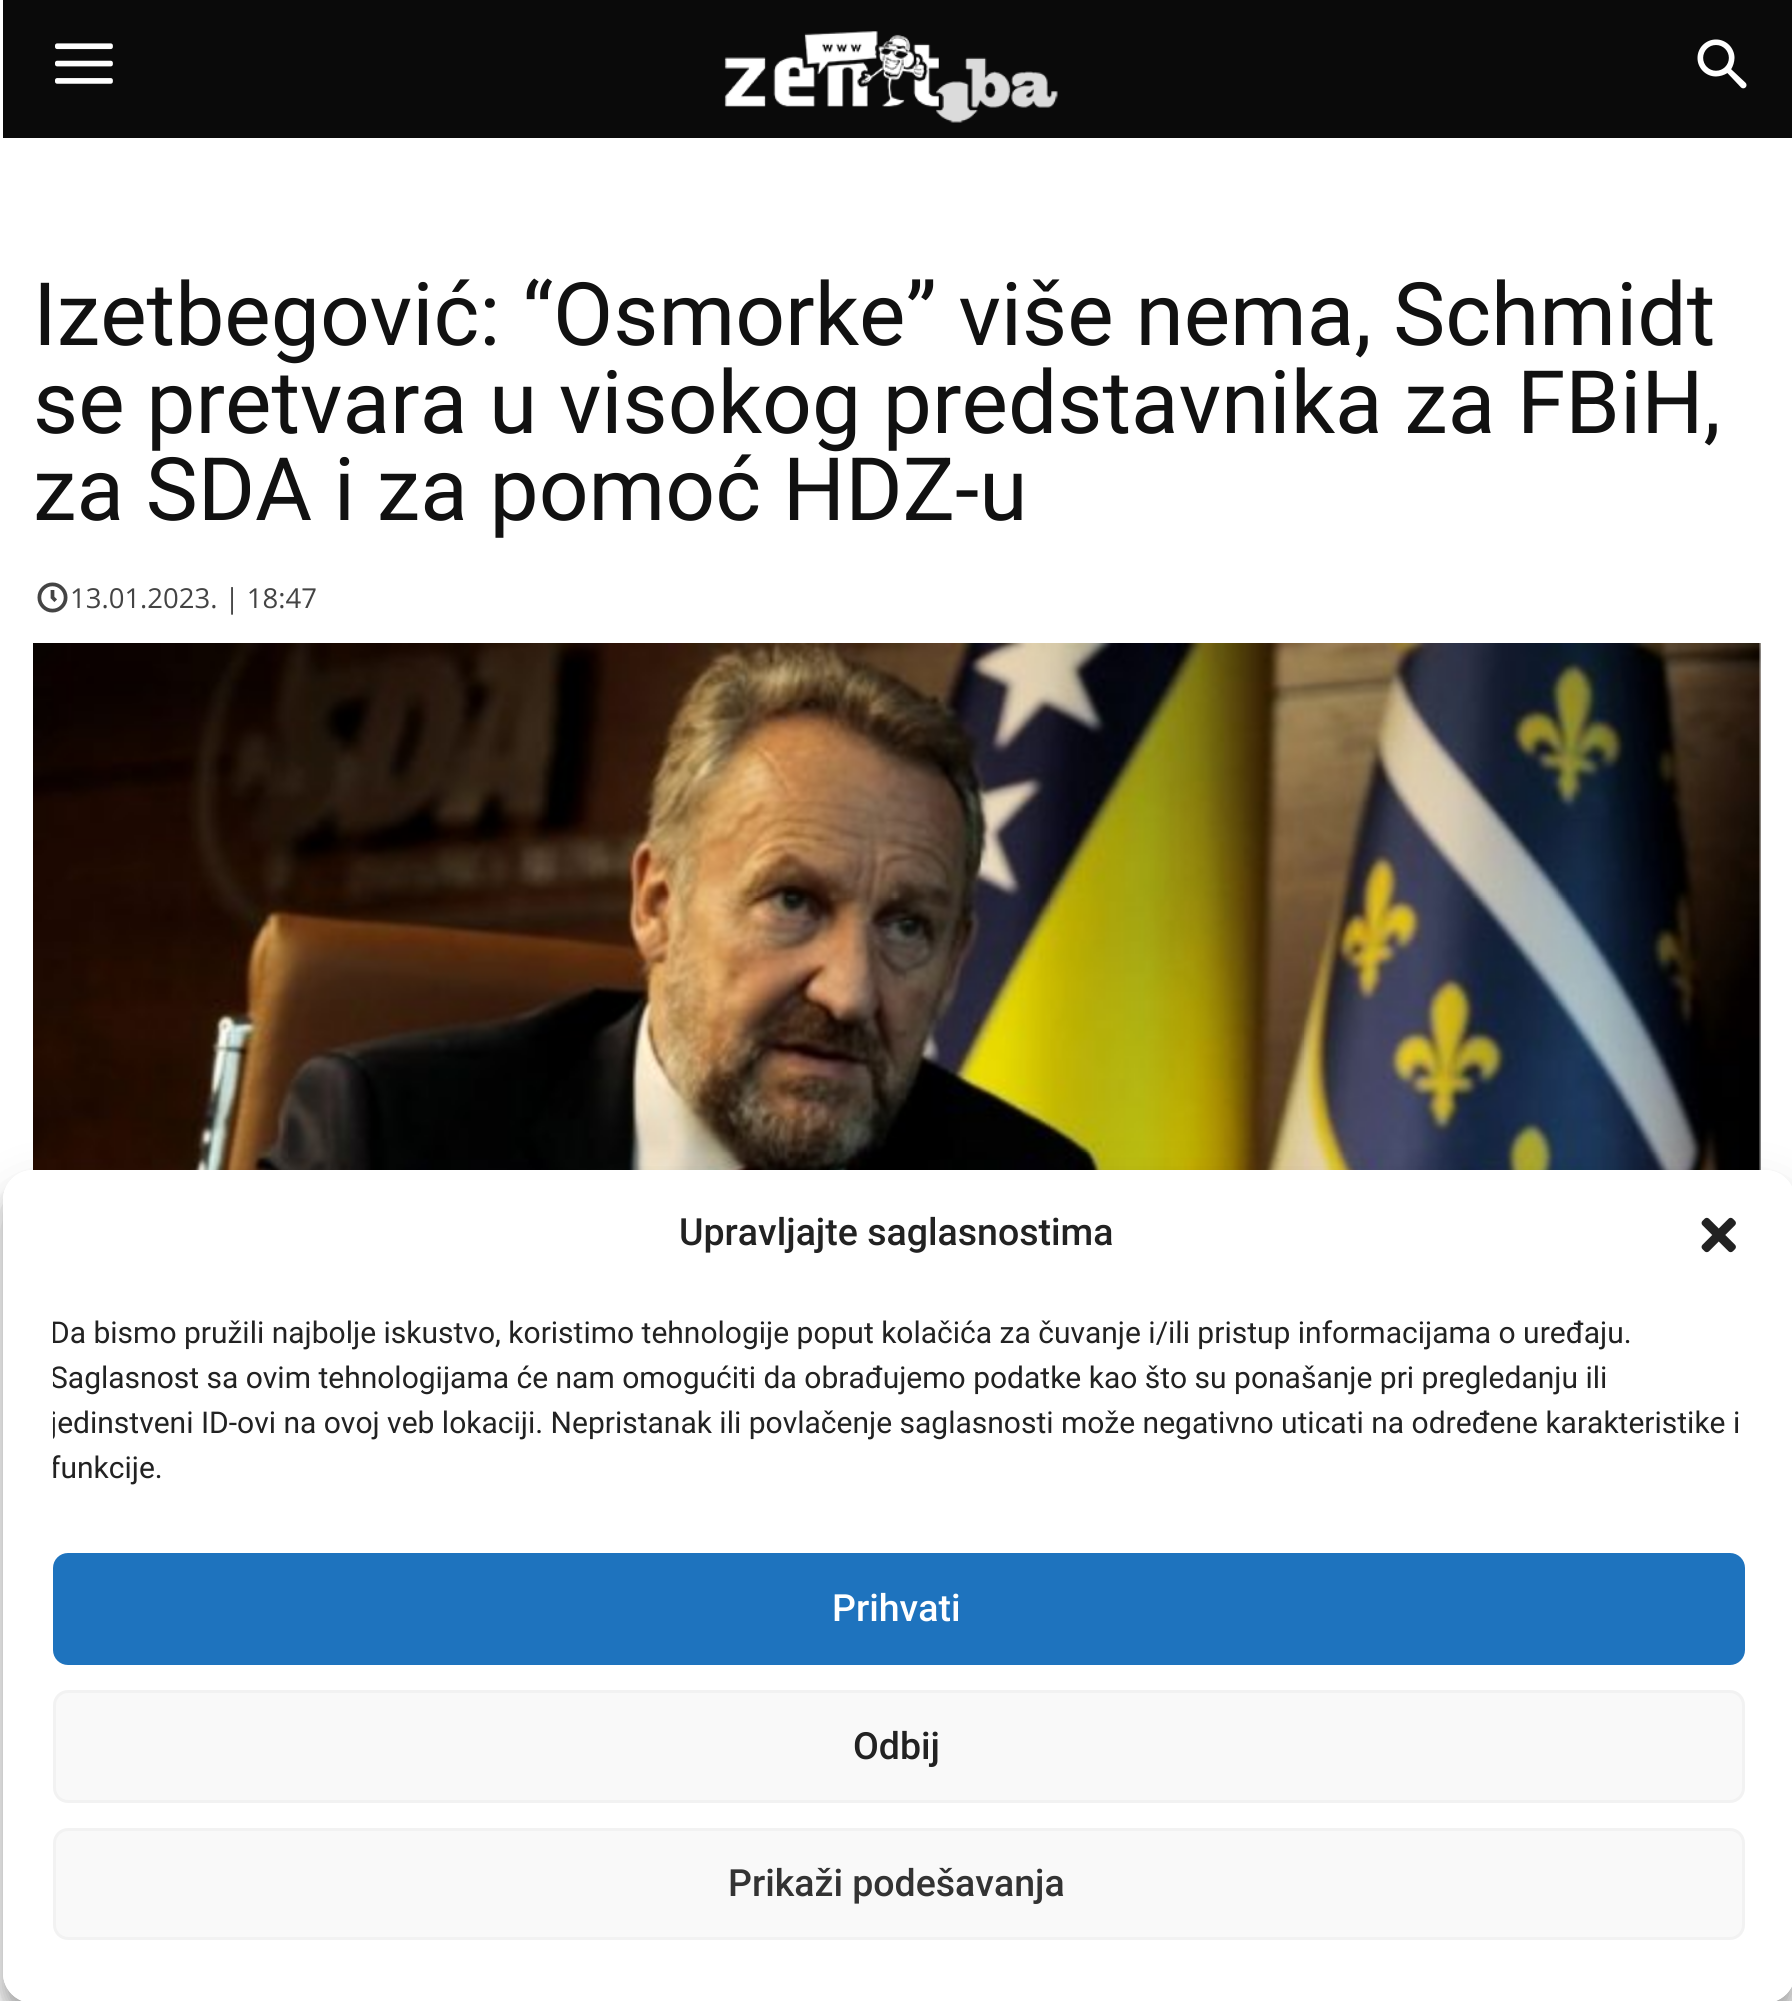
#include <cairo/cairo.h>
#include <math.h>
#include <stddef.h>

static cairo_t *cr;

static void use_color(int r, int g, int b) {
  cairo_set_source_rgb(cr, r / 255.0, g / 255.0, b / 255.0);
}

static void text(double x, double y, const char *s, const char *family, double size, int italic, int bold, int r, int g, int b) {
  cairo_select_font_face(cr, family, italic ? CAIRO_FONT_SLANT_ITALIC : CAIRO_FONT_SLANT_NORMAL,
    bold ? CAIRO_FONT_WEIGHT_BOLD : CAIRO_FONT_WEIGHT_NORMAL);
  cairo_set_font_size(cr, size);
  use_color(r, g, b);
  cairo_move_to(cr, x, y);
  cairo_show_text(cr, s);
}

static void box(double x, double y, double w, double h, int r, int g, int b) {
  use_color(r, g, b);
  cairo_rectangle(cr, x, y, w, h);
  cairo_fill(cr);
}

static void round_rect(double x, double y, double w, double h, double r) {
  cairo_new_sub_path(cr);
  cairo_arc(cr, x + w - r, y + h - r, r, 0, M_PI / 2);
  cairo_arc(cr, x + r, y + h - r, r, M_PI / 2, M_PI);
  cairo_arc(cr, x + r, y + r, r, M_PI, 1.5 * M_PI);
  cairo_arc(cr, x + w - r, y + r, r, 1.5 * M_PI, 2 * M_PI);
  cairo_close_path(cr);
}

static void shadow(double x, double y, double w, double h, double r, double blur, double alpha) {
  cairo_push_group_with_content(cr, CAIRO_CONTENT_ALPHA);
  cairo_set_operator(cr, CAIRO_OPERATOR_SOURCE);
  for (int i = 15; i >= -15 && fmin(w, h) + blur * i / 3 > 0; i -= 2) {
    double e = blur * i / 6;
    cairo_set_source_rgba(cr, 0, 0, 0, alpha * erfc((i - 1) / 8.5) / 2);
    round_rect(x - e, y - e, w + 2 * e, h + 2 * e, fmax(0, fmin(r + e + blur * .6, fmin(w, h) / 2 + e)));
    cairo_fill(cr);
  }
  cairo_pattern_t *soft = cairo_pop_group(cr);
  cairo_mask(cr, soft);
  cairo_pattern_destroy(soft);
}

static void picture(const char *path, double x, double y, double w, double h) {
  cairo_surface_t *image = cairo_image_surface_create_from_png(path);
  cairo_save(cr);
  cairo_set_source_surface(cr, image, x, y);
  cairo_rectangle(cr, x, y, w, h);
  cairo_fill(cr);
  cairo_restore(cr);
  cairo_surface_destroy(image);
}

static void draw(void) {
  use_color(255, 255, 255);
  cairo_paint(cr);
  box(3, 0, 1789, 138, 10, 10, 10);
  picture("img_01.png", 55, 43, 58, 41);
  picture("img_02.png", 724, 31, 334, 92);
  picture("img_03.png", 1697, 39, 50, 50);
  picture("img_04.png", 37, 582, 31, 31);
  picture("img_05.png", 33, 643, 1728, 527);
  cairo_save(cr);
  cairo_set_fill_rule(cr, CAIRO_FILL_RULE_EVEN_ODD);
  cairo_new_path(cr);
  cairo_move_to(cr, 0, 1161);
  cairo_line_to(cr, 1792, 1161);
  cairo_line_to(cr, 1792, 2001);
  cairo_line_to(cr, 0, 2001);
  cairo_close_path(cr);
  cairo_move_to(cr, 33, 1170);
  cairo_line_to(cr, 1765, 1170);
  cairo_curve_to(cr, 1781.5, 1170, 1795, 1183.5, 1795, 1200);
  cairo_line_to(cr, 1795, 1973);
  cairo_curve_to(cr, 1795, 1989.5, 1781.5, 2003, 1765, 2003);
  cairo_line_to(cr, 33, 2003);
  cairo_curve_to(cr, 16.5, 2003, 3, 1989.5, 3, 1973);
  cairo_line_to(cr, 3, 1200);
  cairo_curve_to(cr, 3, 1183.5, 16.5, 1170, 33, 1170);
  cairo_close_path(cr);
  cairo_clip(cr);
  use_color(0, 0, 0);
  shadow(3, 1185, 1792, 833, 30, 7.5, 0.23);
  cairo_restore(cr);
  cairo_save(cr);
  cairo_set_fill_rule(cr, CAIRO_FILL_RULE_EVEN_ODD);
  cairo_new_path(cr);
  cairo_move_to(cr, 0, 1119);
  cairo_line_to(cr, 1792, 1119);
  cairo_line_to(cr, 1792, 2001);
  cairo_line_to(cr, 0, 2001);
  cairo_close_path(cr);
  cairo_move_to(cr, 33, 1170);
  cairo_line_to(cr, 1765, 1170);
  cairo_curve_to(cr, 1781.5, 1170, 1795, 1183.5, 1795, 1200);
  cairo_line_to(cr, 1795, 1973);
  cairo_curve_to(cr, 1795, 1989.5, 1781.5, 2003, 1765, 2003);
  cairo_line_to(cr, 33, 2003);
  cairo_curve_to(cr, 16.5, 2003, 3, 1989.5, 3, 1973);
  cairo_line_to(cr, 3, 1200);
  cairo_curve_to(cr, 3, 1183.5, 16.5, 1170, 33, 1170);
  cairo_close_path(cr);
  cairo_clip(cr);
  use_color(0, 0, 0);
  shadow(3, 1195, 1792, 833, 30, 25, 0.19);
  cairo_restore(cr);
  use_color(255, 255, 255);
  round_rect(3, 1170, 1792, 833, 30);
  cairo_fill(cr);
  picture("img_06.png", 1701, 1217, 35, 36);
  use_color(30, 115, 190);
  round_rect(54.5, 1554.5, 1689, 109, 13.5);
  cairo_fill_preserve(cr);
  cairo_set_line_width(cr, 3);
  cairo_stroke(cr);
  use_color(249, 249, 249);
  round_rect(54.5, 1691.5, 1689, 110, 13.5);
  cairo_fill_preserve(cr);
  use_color(242, 242, 242);
  cairo_stroke(cr);
  use_color(249, 249, 249);
  round_rect(54.5, 1829.5, 1689, 109, 13.5);
  cairo_fill_preserve(cr);
  use_color(242, 242, 242);
  cairo_stroke(cr);
  text(33, 345, "Izetbegović: “Osmorke” više nema, Schmidt", "Roboto", 87.5, 0, 0, 17, 17, 17);
  text(33, 433, "se pretvara u visokog predstavnika za FBiH,", "Roboto", 87.5, 0, 0, 17, 17, 17);
  text(33, 520, "za SDA i za pomoć HDZ-u", "Roboto", 87.5, 0, 0, 17, 17, 17);
  text(70, 608, "13.01.2023. | 18:47", "Open Sans", 27.5, 0, 0, 68, 68, 68);
  text(679, 1245, "Upravljajte saglasnostima", "Roboto Medium", 37.5, 0, 0, 34, 34, 34);
  cairo_save(cr);
  cairo_rectangle(cr, 53, 1310, 1692, 193);
  cairo_clip(cr);
  text(50, 1343, "Da bismo pružili najbolje iskustvo, koristimo tehnologije poput kolačića za čuvanje i/ili pristup informacijama o uređaju.", "Roboto", 30, 0, 0, 34, 34, 34);
  text(50, 1388, "Saglasnost sa ovim tehnologijama će nam omogućiti da obrađujemo podatke kao što su ponašanje pri pregledanju ili", "Roboto", 30, 0, 0, 34, 34, 34);
  text(50, 1433, "jedinstveni ID-ovi na ovoj veb lokaciji. Nepristanak ili povlačenje saglasnosti može negativno uticati na određene karakteristike i", "Roboto", 30, 0, 0, 34, 34, 34);
  text(50, 1478, "funkcije.", "Roboto", 30, 0, 0, 34, 34, 34);
  cairo_restore(cr);
  text(832, 1621, "Prihvati", "Roboto Medium", 37.5, 0, 0, 255, 255, 255);
  text(853, 1759, "Odbij", "Roboto Medium", 37.5, 0, 0, 34, 34, 34);
  text(728, 1896, "Prikaži podešavanja", "Roboto Medium", 37.5, 0, 0, 51, 51, 51);
}

int main(void) {
  cairo_surface_t *surface = cairo_image_surface_create(CAIRO_FORMAT_RGB24, 1792, 2001);
  cr = cairo_create(surface);
  cairo_font_options_t *options = cairo_font_options_create();
  cairo_font_options_set_hint_metrics(options, CAIRO_HINT_METRICS_OFF);
  cairo_font_options_set_hint_style(options, CAIRO_HINT_STYLE_NONE);
  cairo_set_font_options(cr, options);
  cairo_set_miter_limit(cr, 4);
  draw();
  cairo_surface_write_to_png(surface, "out.png");
  cairo_font_options_destroy(options);
  cairo_destroy(cr);
  cairo_surface_destroy(surface);
  return 0;
}
